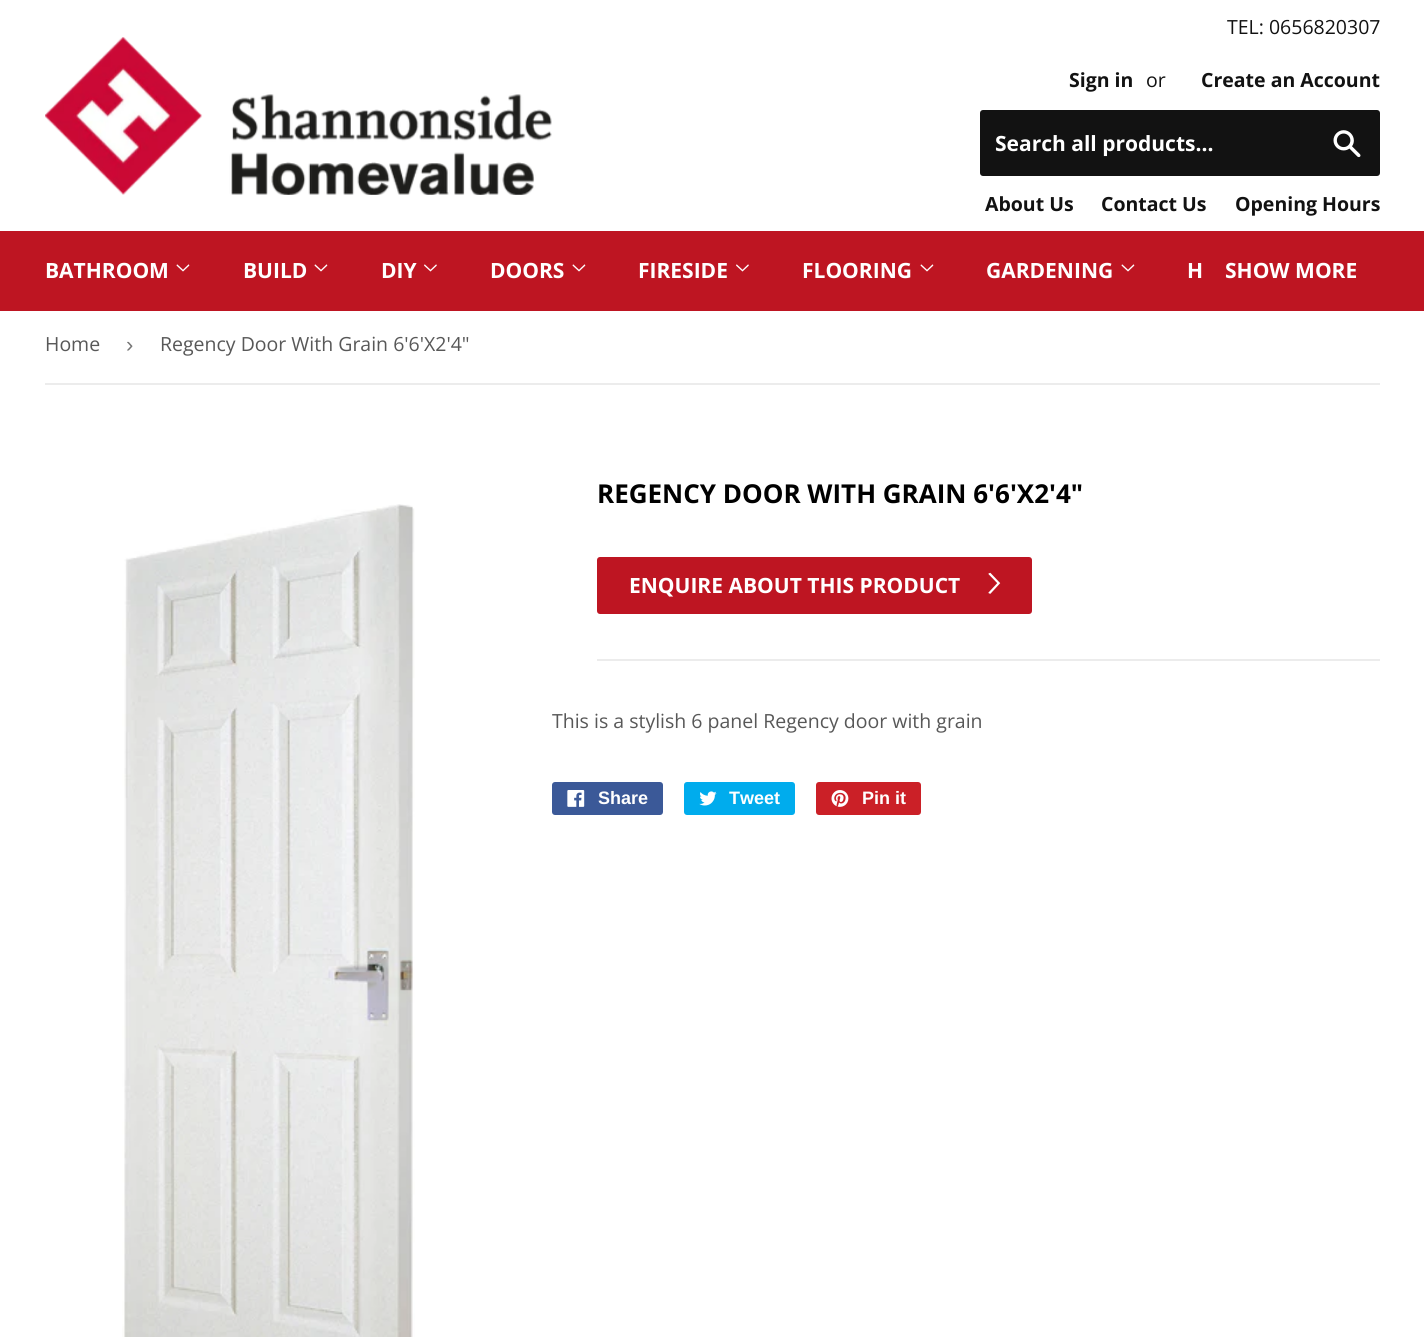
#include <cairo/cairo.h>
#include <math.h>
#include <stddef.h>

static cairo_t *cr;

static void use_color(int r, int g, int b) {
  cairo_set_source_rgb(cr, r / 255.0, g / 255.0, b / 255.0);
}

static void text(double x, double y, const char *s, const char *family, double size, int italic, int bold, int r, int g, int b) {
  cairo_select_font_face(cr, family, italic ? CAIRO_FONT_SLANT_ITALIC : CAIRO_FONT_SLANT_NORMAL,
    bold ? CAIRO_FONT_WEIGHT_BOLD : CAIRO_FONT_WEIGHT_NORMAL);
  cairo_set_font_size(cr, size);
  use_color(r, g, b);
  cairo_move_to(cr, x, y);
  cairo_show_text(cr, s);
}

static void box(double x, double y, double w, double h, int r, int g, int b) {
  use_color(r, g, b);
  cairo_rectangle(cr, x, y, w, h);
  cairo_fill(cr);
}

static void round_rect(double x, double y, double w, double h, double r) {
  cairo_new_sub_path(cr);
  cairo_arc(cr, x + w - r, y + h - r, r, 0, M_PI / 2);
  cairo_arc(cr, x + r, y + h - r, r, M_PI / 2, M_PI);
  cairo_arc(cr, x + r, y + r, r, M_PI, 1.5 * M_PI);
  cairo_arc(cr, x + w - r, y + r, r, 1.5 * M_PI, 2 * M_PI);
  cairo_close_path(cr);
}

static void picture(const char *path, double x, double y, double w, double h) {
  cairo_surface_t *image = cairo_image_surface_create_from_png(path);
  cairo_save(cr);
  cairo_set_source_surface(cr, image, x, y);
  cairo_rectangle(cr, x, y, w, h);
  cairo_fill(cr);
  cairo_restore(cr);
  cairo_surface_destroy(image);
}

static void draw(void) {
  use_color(255, 255, 255);
  cairo_paint(cr);
  picture("img_01.png", 45, 37, 507, 158);
  use_color(18, 18, 18);
  round_rect(980, 110, 400, 66, 3);
  cairo_fill(cr);
  picture("img_02.png", 1333, 130, 28, 28);
  box(0, 231, 1424, 80, 190, 21, 34);
  picture("img_03.png", 176, 264, 14, 8);
  picture("img_03.png", 314, 264, 14, 8);
  picture("img_04.png", 424, 264, 13, 8);
  picture("img_03.png", 572, 264, 14, 8);
  picture("img_04.png", 736, 264, 13, 8);
  picture("img_03.png", 920, 264, 14, 8);
  picture("img_03.png", 1121, 264, 14, 8);
  box(45, 383, 1335, 2, 236, 236, 236);
  picture("img_05.png", 122, 504, 293, 833);
  use_color(190, 21, 34);
  round_rect(597, 557, 435, 57, 3);
  cairo_fill(cr);
  picture("img_06.png", 988, 572, 13, 22);
  box(597, 659, 783, 2, 236, 236, 236);
  use_color(59, 89, 152);
  round_rect(552, 782, 111, 33, 3);
  cairo_fill(cr);
  picture("img_07.png", 567, 790, 18, 17);
  use_color(0, 172, 237);
  round_rect(684, 782, 111, 33, 3);
  cairo_fill(cr);
  picture("img_08.png", 699, 791, 18, 15);
  use_color(203, 32, 39);
  round_rect(816, 782, 105, 33, 3);
  cairo_fill(cr);
  picture("img_09.png", 831, 790, 18, 17);
  text(1227, 34, "TEL: 0656820307", "Open Sans", 19.5, 0, 0, 18, 18, 18);
  text(1069, 87, "Sign in", "Open Sans", 19.5, 0, 1, 18, 18, 18);
  text(1146, 87, "or", "Open Sans", 19.5, 0, 0, 18, 18, 18);
  text(1201, 87, "Create an Account", "Open Sans", 19.5, 0, 1, 18, 18, 18);
  text(995, 151, "Search all products...", "Open Sans", 21, 0, 1, 255, 255, 255);
  text(985, 211, "About Us", "Open Sans", 19.5, 0, 1, 18, 18, 18);
  text(1101, 211, "Contact Us", "Open Sans", 19.5, 0, 1, 18, 18, 18);
  text(1235, 211, "Opening Hours", "Open Sans", 19.5, 0, 1, 18, 18, 18);
  text(45, 278, "BATHROOM", "Open Sans", 21, 0, 1, 255, 255, 255);
  text(243, 278, "BUILD", "Open Sans", 21, 0, 1, 255, 255, 255);
  text(381, 278, "DIY", "Open Sans", 21, 0, 1, 255, 255, 255);
  text(490, 278, "DOORS", "Open Sans", 21, 0, 1, 255, 255, 255);
  text(638, 278, "FIRESIDE", "Open Sans", 21, 0, 1, 255, 255, 255);
  text(802, 278, "FLOORING", "Open Sans", 21, 0, 1, 255, 255, 255);
  text(986, 278, "GARDENING", "Open Sans", 21, 0, 1, 255, 255, 255);
  text(1187, 278, "H", "Open Sans", 21, 0, 1, 255, 255, 255);
  text(1225, 278, "SHOW MORE", "Open Sans", 21, 0, 1, 255, 255, 255);
  text(45, 351, "Home", "Open Sans", 19.5, 0, 0, 88, 88, 88);
  text(126, 352, "›", "Liberation Sans", 22, 0, 0, 118, 118, 118);
  text(160, 351, "Regency Door With Grain 6'6'X2'4\"", "Open Sans", 19.5, 0, 0, 88, 88, 88);
  text(597, 503, "REGENCY DOOR WITH GRAIN 6'6'X2'4\"", "Open Sans", 26, 0, 1, 0, 0, 0);
  text(629, 593, "ENQUIRE ABOUT THIS PRODUCT", "Open Sans", 21, 0, 1, 255, 255, 255);
  text(552, 728, "This is a stylish 6 panel Regency door with grain", "Open Sans", 19.5, 0, 0, 88, 88, 88);
  text(598, 804, "Share", "Liberation Sans", 18, 0, 1, 255, 255, 255);
  text(729, 804, "Tweet", "Liberation Sans", 18, 0, 1, 255, 255, 255);
  text(862, 804, "Pin it", "Liberation Sans", 18, 0, 1, 255, 255, 255);
}

int main(void) {
  cairo_surface_t *surface = cairo_image_surface_create(CAIRO_FORMAT_RGB24, 1424, 1337);
  cr = cairo_create(surface);
  cairo_font_options_t *options = cairo_font_options_create();
  cairo_font_options_set_hint_metrics(options, CAIRO_HINT_METRICS_OFF);
  cairo_font_options_set_hint_style(options, CAIRO_HINT_STYLE_NONE);
  cairo_set_font_options(cr, options);
  cairo_set_miter_limit(cr, 4);
  draw();
  cairo_surface_write_to_png(surface, "out.png");
  cairo_font_options_destroy(options);
  cairo_destroy(cr);
  cairo_surface_destroy(surface);
  return 0;
}
